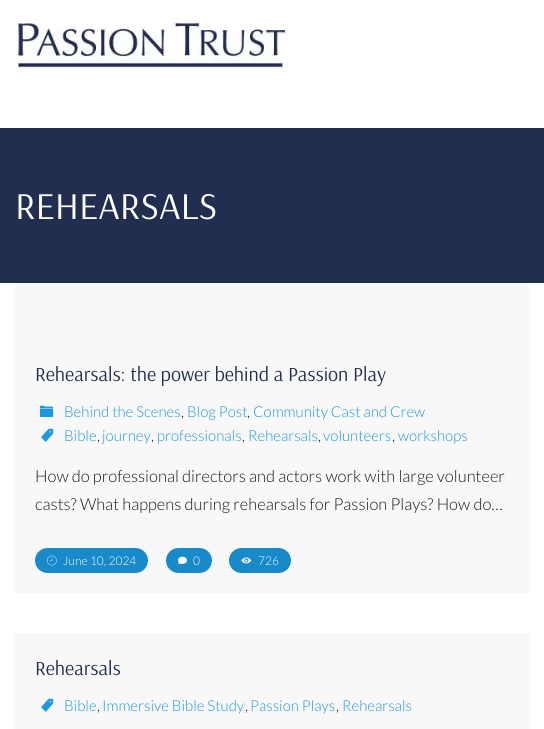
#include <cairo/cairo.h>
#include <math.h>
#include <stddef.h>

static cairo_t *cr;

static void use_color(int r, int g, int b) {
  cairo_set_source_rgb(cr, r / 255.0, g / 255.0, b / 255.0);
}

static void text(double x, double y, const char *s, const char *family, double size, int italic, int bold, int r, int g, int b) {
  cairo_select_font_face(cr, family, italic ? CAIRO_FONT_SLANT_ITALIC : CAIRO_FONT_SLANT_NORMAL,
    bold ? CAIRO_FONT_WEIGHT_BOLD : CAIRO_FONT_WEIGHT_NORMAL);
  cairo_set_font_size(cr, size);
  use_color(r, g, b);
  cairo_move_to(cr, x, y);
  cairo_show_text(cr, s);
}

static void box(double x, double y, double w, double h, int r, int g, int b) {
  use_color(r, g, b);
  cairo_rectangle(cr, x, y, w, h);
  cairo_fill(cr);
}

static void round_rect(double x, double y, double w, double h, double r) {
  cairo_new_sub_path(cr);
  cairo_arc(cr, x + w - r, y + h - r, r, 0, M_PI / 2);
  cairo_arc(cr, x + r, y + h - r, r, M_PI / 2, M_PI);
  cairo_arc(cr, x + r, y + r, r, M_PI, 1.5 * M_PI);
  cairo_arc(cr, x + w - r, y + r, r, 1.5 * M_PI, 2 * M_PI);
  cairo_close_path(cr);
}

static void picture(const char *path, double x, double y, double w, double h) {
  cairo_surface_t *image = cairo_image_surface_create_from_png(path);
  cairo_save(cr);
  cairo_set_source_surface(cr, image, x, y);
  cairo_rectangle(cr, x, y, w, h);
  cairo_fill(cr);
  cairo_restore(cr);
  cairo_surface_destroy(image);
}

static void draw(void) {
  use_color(255, 255, 255);
  cairo_paint(cr);
  picture("img_01.png", 16, 22, 272, 48);
  box(0, 128, 544, 155, 34, 46, 80);
  use_color(248, 248, 248);
  round_rect(15, 283, 514, 310, 1);
  cairo_fill(cr);
  picture("img_02.png", 40, 405, 14, 12);
  picture("img_03.png", 41, 428, 13, 14);
  use_color(24, 137, 201);
  round_rect(35, 548, 113, 25, 12.5);
  cairo_fill(cr);
  picture("img_04.png", 47, 555, 10, 11);
  round_rect(166, 548, 46, 25, 12.5);
  cairo_fill(cr);
  picture("img_05.png", 178, 556, 9, 9);
  round_rect(229, 548, 62, 25, 12.5);
  cairo_fill(cr);
  picture("img_06.png", 241, 557, 11, 7);
  use_color(248, 248, 248);
  round_rect(15, 633, 514, 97, 1);
  cairo_fill(cr);
  picture("img_03.png", 41, 698, 13, 14);
  text(15, 219, "REHEARSALS", "Arsenal", 38, 0, 0, 255, 255, 255);
  text(35, 381, "Rehearsals: the power behind a Passion Play", "Arsenal", 20, 0, 0, 34, 46, 80);
  text(64, 417, "Behind the Scenes", "Lato Light", 15, 0, 0, 27, 152, 224);
  text(181, 417, ",", "Lato Light", 15, 0, 0, 25, 25, 25);
  text(187, 417, "Blog Post", "Lato Light", 15, 0, 0, 27, 152, 224);
  text(247, 417, ",", "Lato Light", 15, 0, 0, 25, 25, 25);
  text(253, 417, "Community Cast and Crew", "Lato Light", 15, 0, 0, 27, 152, 224);
  text(64, 441, "Bible", "Lato Light", 15, 0, 0, 27, 152, 224);
  text(97, 441, ",", "Lato Light", 15, 0, 0, 25, 25, 25);
  text(102, 441, "journey", "Lato Light", 15, 0, 0, 27, 152, 224);
  text(151, 441, ",", "Lato Light", 15, 0, 0, 25, 25, 25);
  text(157, 441, "professionals", "Lato Light", 15, 0, 0, 27, 152, 224);
  text(242, 441, ",", "Lato Light", 15, 0, 0, 25, 25, 25);
  text(248, 441, "Rehearsals", "Lato Light", 15, 0, 0, 27, 152, 224);
  text(318, 441, ",", "Lato Light", 15, 0, 0, 25, 25, 25);
  text(323, 441, "volunteers", "Lato Light", 15, 0, 0, 27, 152, 224);
  text(392, 441, ",", "Lato Light", 15, 0, 0, 25, 25, 25);
  text(398, 441, "workshops", "Lato Light", 15, 0, 0, 27, 152, 224);
  text(35, 482, "How do professional directors and actors work with large volunteer", "Lato Light", 16.5, 0, 0, 25, 25, 25);
  text(35, 510, "casts? What happens during rehearsals for Passion Plays? How do…", "Lato Light", 16.5, 0, 0, 25, 25, 25);
  text(63, 565, "June 10, 2024", "Lato Light", 12, 0, 0, 255, 255, 255);
  text(193, 565, "0", "Lato Light", 12, 0, 0, 255, 255, 255);
  text(258, 565, "726", "Lato Light", 12, 0, 0, 255, 255, 255);
  text(35, 675, "Rehearsals", "Arsenal", 20, 0, 0, 34, 46, 80);
  text(64, 711, "Bible", "Lato Light", 15, 0, 0, 27, 152, 224);
  text(97, 711, ",", "Lato Light", 15, 0, 0, 25, 25, 25);
  text(102, 711, "Immersive Bible Study", "Lato Light", 15, 0, 0, 27, 152, 224);
  text(245, 711, ",", "Lato Light", 15, 0, 0, 25, 25, 25);
  text(250, 711, "Passion Plays", "Lato Light", 15, 0, 0, 27, 152, 224);
  text(336, 711, ",", "Lato Light", 15, 0, 0, 25, 25, 25);
  text(342, 711, "Rehearsals", "Lato Light", 15, 0, 0, 27, 152, 224);
}

int main(void) {
  cairo_surface_t *surface = cairo_image_surface_create(CAIRO_FORMAT_RGB24, 544, 729);
  cr = cairo_create(surface);
  cairo_font_options_t *options = cairo_font_options_create();
  cairo_font_options_set_hint_metrics(options, CAIRO_HINT_METRICS_OFF);
  cairo_font_options_set_hint_style(options, CAIRO_HINT_STYLE_NONE);
  cairo_set_font_options(cr, options);
  cairo_set_miter_limit(cr, 4);
  draw();
  cairo_surface_write_to_png(surface, "out.png");
  cairo_font_options_destroy(options);
  cairo_destroy(cr);
  cairo_surface_destroy(surface);
  return 0;
}
